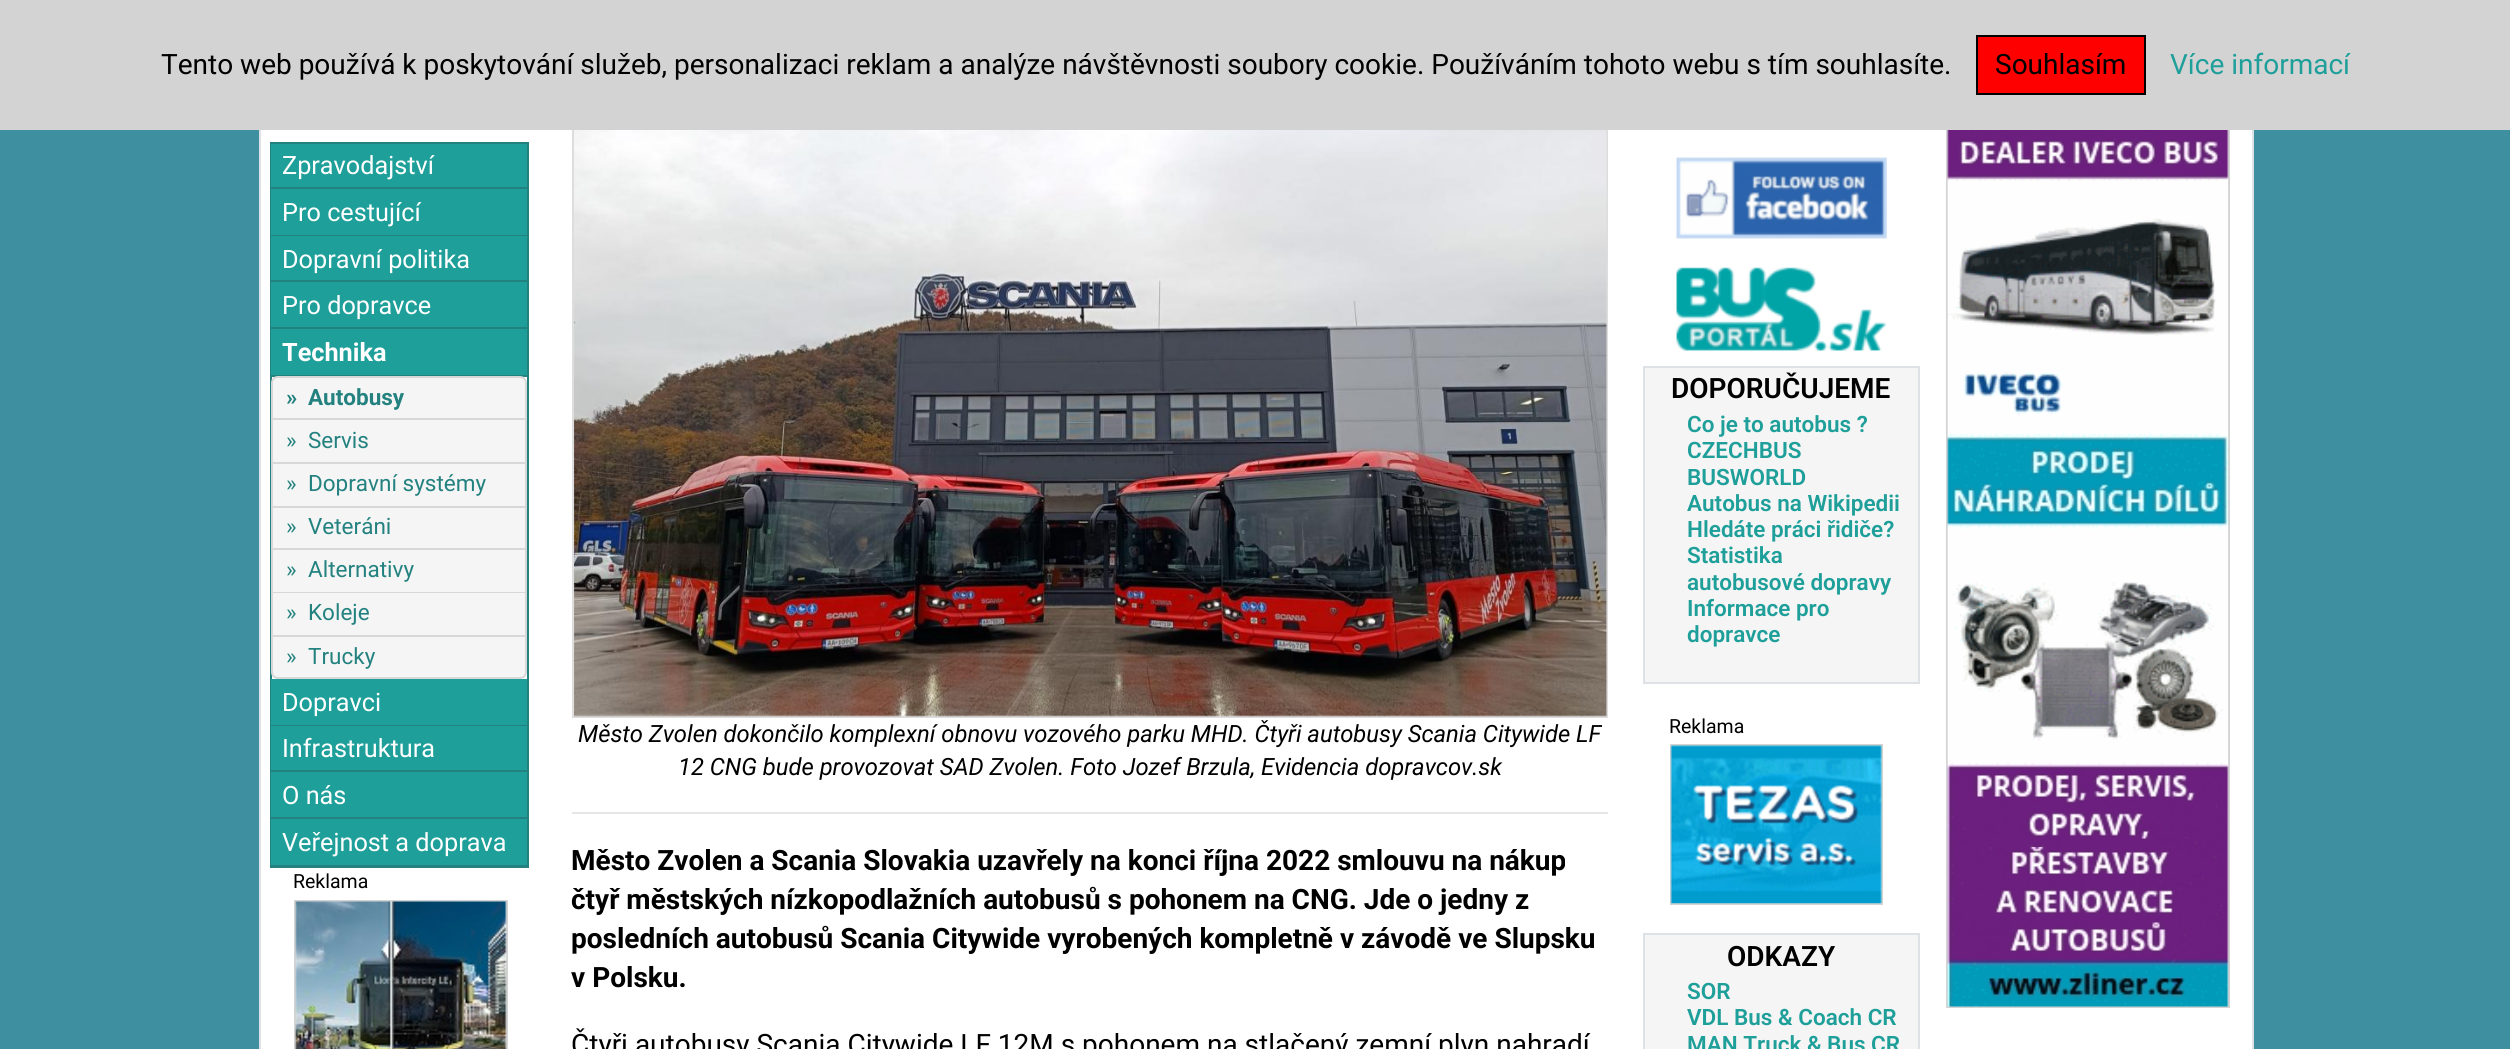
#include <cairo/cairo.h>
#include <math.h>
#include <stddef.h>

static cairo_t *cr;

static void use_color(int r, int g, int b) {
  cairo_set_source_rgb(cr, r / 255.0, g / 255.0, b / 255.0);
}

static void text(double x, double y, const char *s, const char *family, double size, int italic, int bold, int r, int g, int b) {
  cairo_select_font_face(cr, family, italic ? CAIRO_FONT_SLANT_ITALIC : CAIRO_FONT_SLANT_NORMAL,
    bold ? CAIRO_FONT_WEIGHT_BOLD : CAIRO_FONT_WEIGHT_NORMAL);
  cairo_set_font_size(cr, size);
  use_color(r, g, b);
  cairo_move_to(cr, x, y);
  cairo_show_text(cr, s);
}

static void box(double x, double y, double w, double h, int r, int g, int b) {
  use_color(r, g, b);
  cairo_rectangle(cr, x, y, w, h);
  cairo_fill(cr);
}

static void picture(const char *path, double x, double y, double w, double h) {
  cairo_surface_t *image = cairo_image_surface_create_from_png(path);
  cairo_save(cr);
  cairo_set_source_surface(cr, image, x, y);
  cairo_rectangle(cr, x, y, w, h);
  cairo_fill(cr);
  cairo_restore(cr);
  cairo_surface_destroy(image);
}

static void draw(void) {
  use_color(62, 143, 159);
  cairo_paint(cr);
  box(261, 130, 1991, 919, 255, 255, 255);
  cairo_rectangle(cr, 260, -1, 1993, 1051);
  use_color(222, 226, 230);
  cairo_stroke(cr);
  cairo_rectangle(cr, 573, 71, 1034, 646);
  use_color(221, 221, 221);
  cairo_stroke(cr);
  cairo_rectangle(cr, 1947, -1, 282, 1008);
  use_color(211, 211, 211);
  cairo_stroke(cr);
  box(0, 0, 2510, 130, 211, 211, 211);
  use_color(255, 0, 0);
  cairo_rectangle(cr, 1977, 36, 168, 58);
  cairo_fill_preserve(cr);
  use_color(0, 0, 0);
  cairo_stroke(cr);
  cairo_rectangle(cr, 271, 143, 257, 724);
  use_color(35, 130, 127);
  cairo_stroke(cr);
  box(271, 144, 256, 43, 30, 159, 154);
  box(271, 187, 256, 2, 35, 130, 127);
  box(271, 189, 256, 46, 30, 159, 154);
  box(271, 235, 256, 1, 35, 130, 127);
  box(271, 236, 256, 44, 30, 159, 154);
  box(271, 280, 256, 2, 35, 130, 127);
  box(271, 282, 256, 45, 30, 159, 154);
  box(271, 327, 256, 2, 35, 130, 127);
  box(271, 329, 256, 46, 30, 159, 154);
  box(271, 375, 256, 2, 35, 130, 127);
  use_color(245, 245, 245);
  cairo_new_path(cr);
  cairo_move_to(cr, 278, 376);
  cairo_line_to(cr, 520, 376);
  cairo_curve_to(cr, 524, 376, 527, 379, 527, 383);
  cairo_line_to(cr, 527, 420);
  cairo_line_to(cr, 271, 420);
  cairo_line_to(cr, 271, 383);
  cairo_curve_to(cr, 271, 379, 274, 376, 278, 376);
  cairo_close_path(cr);
  cairo_fill(cr);
  cairo_new_path(cr);
  cairo_move_to(cr, 278, 377);
  cairo_line_to(cr, 520, 377);
  cairo_curve_to(cr, 523.5, 377, 526, 379.5, 526, 383);
  cairo_line_to(cr, 526, 419);
  cairo_line_to(cr, 272, 419);
  cairo_line_to(cr, 272, 383);
  cairo_curve_to(cr, 272, 379.5, 274.5, 377, 278, 377);
  cairo_close_path(cr);
  cairo_set_source_rgba(cr, 0, 0, 0, 0.12);
  cairo_stroke(cr);
  box(271, 420, 256, 217, 245, 245, 245);
  use_color(214, 214, 214);
  cairo_new_path(cr);
  cairo_move_to(cr, 527, 420);
  cairo_line_to(cr, 527, 464);
  cairo_line_to(cr, 525, 462);
  cairo_line_to(cr, 525, 420);
  cairo_close_path(cr);
  cairo_fill(cr);
  cairo_set_source_rgba(cr, 0, 0, 0, 0.12);
  cairo_new_path(cr);
  cairo_move_to(cr, 527, 464);
  cairo_line_to(cr, 271, 464);
  cairo_line_to(cr, 273, 462);
  cairo_line_to(cr, 525, 462);
  cairo_close_path(cr);
  cairo_fill(cr);
  cairo_new_path(cr);
  cairo_move_to(cr, 271, 464);
  cairo_line_to(cr, 271, 420);
  cairo_line_to(cr, 273, 420);
  cairo_line_to(cr, 273, 462);
  cairo_close_path(cr);
  cairo_fill(cr);
  use_color(214, 214, 214);
  cairo_new_path(cr);
  cairo_move_to(cr, 527, 464);
  cairo_line_to(cr, 527, 508);
  cairo_line_to(cr, 525, 506);
  cairo_line_to(cr, 525, 464);
  cairo_close_path(cr);
  cairo_fill(cr);
  cairo_set_source_rgba(cr, 0, 0, 0, 0.12);
  cairo_new_path(cr);
  cairo_move_to(cr, 527, 508);
  cairo_line_to(cr, 271, 508);
  cairo_line_to(cr, 273, 506);
  cairo_line_to(cr, 525, 506);
  cairo_close_path(cr);
  cairo_fill(cr);
  cairo_new_path(cr);
  cairo_move_to(cr, 271, 508);
  cairo_line_to(cr, 271, 464);
  cairo_line_to(cr, 273, 464);
  cairo_line_to(cr, 273, 506);
  cairo_close_path(cr);
  cairo_fill(cr);
  use_color(214, 214, 214);
  cairo_new_path(cr);
  cairo_move_to(cr, 527, 508);
  cairo_line_to(cr, 527, 550);
  cairo_line_to(cr, 525, 548);
  cairo_line_to(cr, 525, 508);
  cairo_close_path(cr);
  cairo_fill(cr);
  cairo_set_source_rgba(cr, 0, 0, 0, 0.12);
  cairo_new_path(cr);
  cairo_move_to(cr, 527, 550);
  cairo_line_to(cr, 271, 550);
  cairo_line_to(cr, 273, 548);
  cairo_line_to(cr, 525, 548);
  cairo_close_path(cr);
  cairo_fill(cr);
  cairo_new_path(cr);
  cairo_move_to(cr, 271, 550);
  cairo_line_to(cr, 271, 508);
  cairo_line_to(cr, 273, 508);
  cairo_line_to(cr, 273, 548);
  cairo_close_path(cr);
  cairo_fill(cr);
  use_color(214, 214, 214);
  cairo_new_path(cr);
  cairo_move_to(cr, 527, 550);
  cairo_line_to(cr, 527, 593);
  cairo_line_to(cr, 525, 592);
  cairo_line_to(cr, 525, 550);
  cairo_close_path(cr);
  cairo_fill(cr);
  cairo_set_source_rgba(cr, 0, 0, 0, 0.12);
  cairo_new_path(cr);
  cairo_move_to(cr, 527, 593);
  cairo_line_to(cr, 271, 593);
  cairo_line_to(cr, 273, 592);
  cairo_line_to(cr, 525, 592);
  cairo_close_path(cr);
  cairo_fill(cr);
  cairo_new_path(cr);
  cairo_move_to(cr, 271, 593);
  cairo_line_to(cr, 271, 550);
  cairo_line_to(cr, 273, 550);
  cairo_line_to(cr, 273, 592);
  cairo_close_path(cr);
  cairo_fill(cr);
  use_color(214, 214, 214);
  cairo_new_path(cr);
  cairo_move_to(cr, 527, 593);
  cairo_line_to(cr, 527, 637);
  cairo_line_to(cr, 525, 635);
  cairo_line_to(cr, 525, 593);
  cairo_close_path(cr);
  cairo_fill(cr);
  cairo_set_source_rgba(cr, 0, 0, 0, 0.12);
  cairo_new_path(cr);
  cairo_move_to(cr, 527, 637);
  cairo_line_to(cr, 271, 637);
  cairo_line_to(cr, 273, 635);
  cairo_line_to(cr, 525, 635);
  cairo_close_path(cr);
  cairo_fill(cr);
  cairo_new_path(cr);
  cairo_move_to(cr, 271, 637);
  cairo_line_to(cr, 271, 593);
  cairo_line_to(cr, 273, 593);
  cairo_line_to(cr, 273, 635);
  cairo_close_path(cr);
  cairo_fill(cr);
  use_color(245, 245, 245);
  cairo_new_path(cr);
  cairo_move_to(cr, 271, 637);
  cairo_line_to(cr, 527, 637);
  cairo_line_to(cr, 527, 672);
  cairo_curve_to(cr, 527, 676, 524, 679, 520, 679);
  cairo_line_to(cr, 278, 679);
  cairo_curve_to(cr, 274, 679, 271, 676, 271, 672);
  cairo_close_path(cr);
  cairo_fill(cr);
  cairo_set_source_rgba(cr, 0, 0, 0, 0.12);
  cairo_set_fill_rule(cr, CAIRO_FILL_RULE_EVEN_ODD);
  cairo_new_path(cr);
  cairo_move_to(cr, 271, 637);
  cairo_line_to(cr, 527, 637);
  cairo_line_to(cr, 527, 672);
  cairo_curve_to(cr, 527, 676, 524, 679, 520, 679);
  cairo_line_to(cr, 278, 679);
  cairo_curve_to(cr, 274, 679, 271, 676, 271, 672);
  cairo_close_path(cr);
  cairo_move_to(cr, 273, 637);
  cairo_line_to(cr, 525, 637);
  cairo_line_to(cr, 525, 672);
  cairo_curve_to(cr, 525, 675, 523, 677, 520, 677);
  cairo_line_to(cr, 278, 677);
  cairo_curve_to(cr, 275, 677, 273, 675, 273, 672);
  cairo_close_path(cr);
  cairo_fill(cr);
  box(271, 679, 256, 46, 30, 159, 154);
  box(271, 725, 256, 1, 35, 130, 127);
  box(271, 726, 256, 44, 30, 159, 154);
  box(271, 770, 256, 2, 35, 130, 127);
  box(271, 772, 256, 45, 30, 159, 154);
  box(271, 817, 256, 2, 35, 130, 127);
  box(271, 819, 256, 46, 30, 159, 154);
  box(271, 865, 256, 1, 35, 130, 127);
  cairo_rectangle(cr, 295, 901, 212, 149);
  use_color(211, 211, 211);
  cairo_stroke(cr);
  picture("img_01.png", 295, 901, 212, 148);
  picture("img_02.png", 574, 130, 1033, 587);
  box(572, 812, 1036, 2, 230, 230, 230);
  picture("img_03.png", 1675, 157, 212, 82);
  picture("img_04.png", 1676, 267, 211, 84);
  use_color(245, 245, 245);
  cairo_rectangle(cr, 1644, 367, 275, 316);
  cairo_fill_preserve(cr);
  use_color(222, 226, 230);
  cairo_stroke(cr);
  cairo_rectangle(cr, 1671, 745, 211, 159);
  use_color(211, 211, 211);
  cairo_stroke(cr);
  picture("img_05.png", 1670, 745, 212, 159);
  use_color(245, 245, 245);
  cairo_rectangle(cr, 1644, 934, 275, 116);
  cairo_fill_preserve(cr);
  use_color(222, 226, 230);
  cairo_stroke(cr);
  picture("img_06.png", 1947, 130, 282, 877);
  text(161, 74, "Tento web používá k poskytování služeb, personalizaci reklam a analýze návštěvnosti soubory cookie. Používáním tohoto webu s tím souhlasíte.", "Roboto", 28, 0, 0, 0, 0, 0);
  text(1995, 74, "Souhlasím", "Roboto", 28, 0, 0, 0, 0, 0);
  text(2170, 74, "Více informací", "Roboto", 28, 0, 0, 30, 159, 154);
  text(282, 174, "Zpravodajství", "Roboto", 25.25, 0, 0, 255, 255, 255);
  text(282, 221, "Pro cestující", "Roboto", 25.25, 0, 0, 255, 255, 255);
  text(282, 268, "Dopravní politika", "Roboto", 25.25, 0, 0, 255, 255, 255);
  text(282, 314, "Pro dopravce", "Roboto", 25.25, 0, 0, 255, 255, 255);
  text(282, 361, "Technika", "Roboto", 25.25, 0, 1, 255, 255, 255);
  text(286, 405, "»", "Roboto", 22.5, 0, 1, 35, 130, 127);
  text(308, 405, "Autobusy", "Roboto", 22.5, 0, 1, 35, 130, 127);
  text(286, 448, "»", "Roboto", 22.5, 0, 0, 35, 130, 127);
  text(308, 448, "Servis", "Roboto", 22.5, 0, 0, 35, 130, 127);
  text(286, 491, "»", "Roboto", 22.5, 0, 0, 35, 130, 127);
  text(308, 491, "Dopravní systémy", "Roboto", 22.5, 0, 0, 35, 130, 127);
  text(286, 534, "»", "Roboto", 22.5, 0, 0, 35, 130, 127);
  text(308, 534, "Veteráni", "Roboto", 22.5, 0, 0, 35, 130, 127);
  text(286, 577, "»", "Roboto", 22.5, 0, 0, 35, 130, 127);
  text(308, 577, "Alternativy", "Roboto", 22.5, 0, 0, 35, 130, 127);
  text(286, 620, "»", "Roboto", 22.5, 0, 0, 35, 130, 127);
  text(308, 620, "Koleje", "Roboto", 22.5, 0, 0, 35, 130, 127);
  text(286, 664, "»", "Roboto", 22.5, 0, 0, 35, 130, 127);
  text(308, 664, "Trucky", "Roboto", 22.5, 0, 0, 35, 130, 127);
  text(282, 711, "Dopravci", "Roboto", 25.25, 0, 0, 255, 255, 255);
  text(282, 757, "Infrastruktura", "Roboto", 25.25, 0, 0, 255, 255, 255);
  text(282, 804, "O nás", "Roboto", 25.25, 0, 0, 255, 255, 255);
  text(282, 851, "Veřejnost a doprava", "Roboto", 25.25, 0, 0, 255, 255, 255);
  text(293, 888, "Reklama", "Roboto", 19.5, 0, 0, 0, 0, 0);
  text(578, 742, "Město Zvolen dokončilo komplexní obnovu vozového parku MHD. Čtyři autobusy Scania Citywide LF", "Roboto", 23.8, 1, 0, 0, 0, 0);
  text(678, 775, "12 CNG bude provozovat SAD Zvolen. Foto Jozef Brzula, Evidencia dopravcov.sk", "Roboto", 23.8, 1, 0, 0, 0, 0);
  text(571, 870, "Město Zvolen a Scania Slovakia uzavřely na konci října 2022 smlouvu na nákup", "Roboto", 28, 0, 1, 0, 0, 0);
  text(571, 909, "čtyř městských nízkopodlažních autobusů s pohonem na CNG. Jde o jedny z", "Roboto", 28, 0, 1, 0, 0, 0);
  text(571, 948, "posledních autobusů Scania Citywide vyrobených kompletně v závodě ve Slupsku", "Roboto", 28, 0, 1, 0, 0, 0);
  text(571, 987, "v Polsku.", "Roboto", 28, 0, 1, 0, 0, 0);
  text(571, 1054, "Čtyři autobusy Scania Citywide LF 12M s pohonem na stlačený zemní plyn nahradí", "Roboto", 28, 0, 0, 0, 0, 0);
  text(1671, 398, "DOPORUČUJEME", "Roboto SemiBold", 28, 0, 0, 0, 0, 0);
  text(1687, 432, "Co je to autobus ?", "Roboto SemiBold", 22.5, 0, 0, 30, 159, 154);
  text(1687, 458, "CZECHBUS", "Roboto SemiBold", 22.5, 0, 0, 30, 159, 154);
  text(1687, 485, "BUSWORLD", "Roboto SemiBold", 22.5, 0, 0, 30, 159, 154);
  text(1687, 511, "Autobus na Wikipedii", "Roboto SemiBold", 22.5, 0, 0, 30, 159, 154);
  text(1687, 537, "Hledáte práci řidiče?", "Roboto SemiBold", 22.5, 0, 0, 30, 159, 154);
  text(1687, 563, "Statistika", "Roboto SemiBold", 22.5, 0, 0, 30, 159, 154);
  text(1687, 590, "autobusové dopravy", "Roboto SemiBold", 22.5, 0, 0, 30, 159, 154);
  text(1687, 616, "Informace pro", "Roboto SemiBold", 22.5, 0, 0, 30, 159, 154);
  text(1687, 642, "dopravce", "Roboto SemiBold", 22.5, 0, 0, 30, 159, 154);
  text(1669, 733, "Reklama", "Roboto", 19.5, 0, 0, 0, 0, 0);
  text(1727, 966, "ODKAZY", "Roboto SemiBold", 28, 0, 0, 0, 0, 0);
  text(1687, 999, "SOR", "Roboto SemiBold", 22.5, 0, 0, 30, 159, 154);
  text(1687, 1025, "VDL Bus & Coach CR", "Roboto SemiBold", 22.5, 0, 0, 30, 159, 154);
  text(1687, 1052, "MAN Truck & Bus CR", "Roboto SemiBold", 22.5, 0, 0, 30, 159, 154);
}

int main(void) {
  cairo_surface_t *surface = cairo_image_surface_create(CAIRO_FORMAT_RGB24, 2510, 1049);
  cr = cairo_create(surface);
  cairo_font_options_t *options = cairo_font_options_create();
  cairo_font_options_set_hint_metrics(options, CAIRO_HINT_METRICS_OFF);
  cairo_font_options_set_hint_style(options, CAIRO_HINT_STYLE_NONE);
  cairo_set_font_options(cr, options);
  cairo_set_miter_limit(cr, 4);
  draw();
  cairo_surface_write_to_png(surface, "out.png");
  cairo_font_options_destroy(options);
  cairo_destroy(cr);
  cairo_surface_destroy(surface);
  return 0;
}
